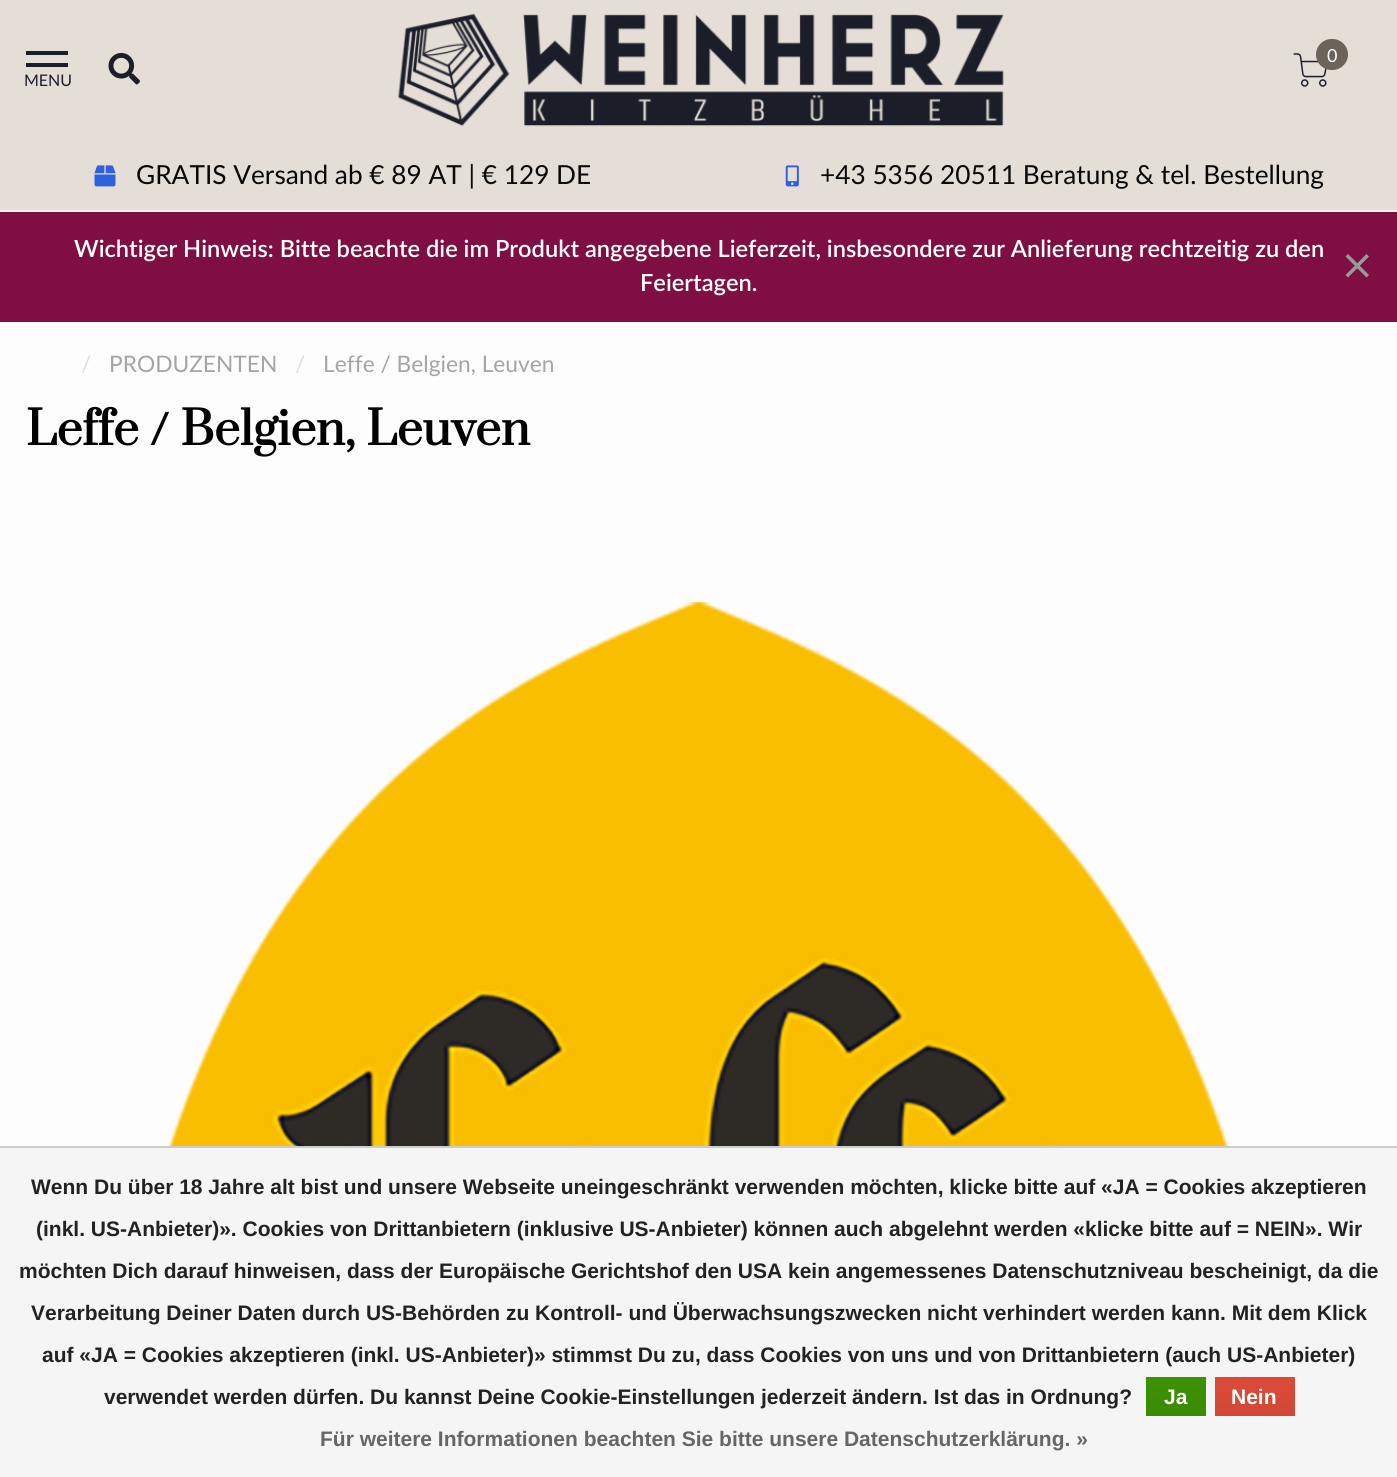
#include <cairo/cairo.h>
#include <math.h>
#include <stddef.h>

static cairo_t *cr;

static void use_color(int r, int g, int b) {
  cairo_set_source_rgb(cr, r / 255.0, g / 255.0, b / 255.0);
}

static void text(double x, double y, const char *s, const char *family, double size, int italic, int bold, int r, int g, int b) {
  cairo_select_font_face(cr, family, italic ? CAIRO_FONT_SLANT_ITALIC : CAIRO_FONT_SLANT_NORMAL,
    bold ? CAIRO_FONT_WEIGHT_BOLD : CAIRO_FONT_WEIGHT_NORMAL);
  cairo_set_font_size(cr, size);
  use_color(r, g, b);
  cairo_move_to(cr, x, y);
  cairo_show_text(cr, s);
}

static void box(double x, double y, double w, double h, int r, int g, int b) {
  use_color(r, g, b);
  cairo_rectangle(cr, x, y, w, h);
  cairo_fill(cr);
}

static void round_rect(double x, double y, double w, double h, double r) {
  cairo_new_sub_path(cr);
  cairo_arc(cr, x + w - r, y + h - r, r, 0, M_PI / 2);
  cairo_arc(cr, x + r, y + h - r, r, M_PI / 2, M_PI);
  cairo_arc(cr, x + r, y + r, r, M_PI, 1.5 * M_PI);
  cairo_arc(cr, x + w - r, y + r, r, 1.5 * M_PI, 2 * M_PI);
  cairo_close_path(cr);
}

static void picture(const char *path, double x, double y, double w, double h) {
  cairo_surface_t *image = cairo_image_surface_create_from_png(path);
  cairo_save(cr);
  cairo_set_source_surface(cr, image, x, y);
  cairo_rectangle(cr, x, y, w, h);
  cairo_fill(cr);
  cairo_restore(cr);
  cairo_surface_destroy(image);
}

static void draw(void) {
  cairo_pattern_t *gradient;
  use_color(253, 253, 253);
  cairo_paint(cr);
  box(0, 0, 1397, 210, 228, 222, 214);
  picture("img_01.png", 398, 13, 606, 114);
  picture("img_02.png", 1293, 53, 34, 34);
  use_color(108, 100, 91);
  round_rect(1316, 39, 32, 31, 15.5);
  cairo_fill(cr);
  box(26, 51, 42, 4, 28, 31, 42);
  box(26, 63, 42, 4, 28, 31, 42);
  picture("img_03.png", 108, 52, 32, 33);
  box(0, 210, 1397, 2, 238, 238, 238);
  picture("img_04.png", 94, 165, 22, 22);
  picture("img_05.png", 785, 165, 14, 22);
  box(0, 212, 1397, 110, 127, 15, 67);
  use_color(153, 153, 153);
  cairo_new_path(cr);
  cairo_move_to(cr, 1348, 254);
  cairo_line_to(cr, 1369, 275);
  cairo_line_to(cr, 1366.5, 277.5);
  cairo_line_to(cr, 1345.5, 256.5);
  cairo_close_path(cr);
  cairo_fill(cr);
  cairo_new_path(cr);
  cairo_move_to(cr, 1345.5, 275);
  cairo_line_to(cr, 1366.5, 254);
  cairo_line_to(cr, 1369, 256.5);
  cairo_line_to(cr, 1348, 277.5);
  cairo_close_path(cr);
  cairo_fill(cr);
  picture("img_06.png", 168, 602, 1062, 544);
  box(0, 1148, 1397, 329, 245, 245, 245);
  box(0, 1146, 1397, 2, 204, 204, 204);
  gradient = cairo_pattern_create_linear(1176, 1377, 1176, 1416);
  cairo_pattern_add_color_stop_rgba(gradient, 0, 0.235, 0.576, 0, 1);
  cairo_pattern_add_color_stop_rgba(gradient, 1, 0.224, 0.541, 0, 1);
  cairo_set_source(cr, gradient);
  cairo_pattern_destroy(gradient);
  cairo_rectangle(cr, 1146, 1377, 60, 39);
  cairo_fill(cr);
  gradient = cairo_pattern_create_linear(1255, 1377, 1255, 1416);
  cairo_pattern_add_color_stop_rgba(gradient, 0, 0.863, 0.29, 0.22, 1);
  cairo_pattern_add_color_stop_rgba(gradient, 1, 0.82, 0.282, 0.212, 1);
  cairo_set_source(cr, gradient);
  cairo_pattern_destroy(gradient);
  cairo_rectangle(cr, 1215, 1377, 80, 39);
  cairo_fill(cr);
  text(1327, 62, "0", "Lato", 18, 0, 0, 255, 255, 255);
  text(24, 86, "MENU", "Lato", 16, 0, 0, 28, 31, 42);
  text(136, 184, "GRATIS Versand ab € 89 AT | € 129 DE", "Lato", 26.25, 0, 0, 9, 9, 9);
  text(820, 184, "+43 5356 20511 Beratung & tel. Bestellung", "Lato", 26.25, 0, 0, 9, 9, 9);
  text(74, 257, "Wichtiger Hinweis: Bitte beachte die im Produkt angegebene Lieferzeit, insbesondere zur Anlieferung rechtzeitig zu den", "Lato SemiBold", 23.62, 0, 0, 255, 255, 255);
  text(640, 291, "Feiertagen.", "Lato SemiBold", 23.62, 0, 0, 255, 255, 255);
  text(81, 372, "/", "Lato", 22.75, 0, 0, 221, 221, 221);
  text(109, 372, "PRODUZENTEN", "Lato", 22.75, 0, 0, 165, 165, 165);
  text(295, 372, "/", "Lato", 22.75, 0, 0, 221, 221, 221);
  text(323, 372, "Leffe / Belgien, Leuven", "Lato", 22.75, 0, 0, 165, 165, 165);
  text(26, 445, "Leffe / Belgien, Leuven", "Prata", 45.5, 0, 1, 0, 0, 0);
  text(31, 1194, "Wenn Du über 18 Jahre alt bist und unsere Webseite uneingeschränkt verwenden möchten, klicke bitte auf «JA = Cookies akzeptieren", "Liberation Sans", 21, 0, 1, 34, 34, 34);
  text(36, 1236, "(inkl. US-Anbieter)». Cookies von Drittanbietern (inklusive US-Anbieter) können auch abgelehnt werden «klicke bitte auf = NEIN». Wir", "Liberation Sans", 21, 0, 1, 34, 34, 34);
  text(19, 1278, "möchten Dich darauf hinweisen, dass der Europäische Gerichtshof den USA kein angemessenes Datenschutzniveau bescheinigt, da die", "Liberation Sans", 21, 0, 1, 34, 34, 34);
  text(31, 1320, "Verarbeitung Deiner Daten durch US-Behörden zu Kontroll- und Überwachsungszwecken nicht verhindert werden kann. Mit dem Klick", "Liberation Sans", 21, 0, 1, 34, 34, 34);
  text(42, 1362, "auf «JA = Cookies akzeptieren (inkl. US-Anbieter)» stimmst Du zu, dass Cookies von uns und von Drittanbietern (auch US-Anbieter)", "Liberation Sans", 21, 0, 1, 34, 34, 34);
  text(104, 1404, "verwendet werden dürfen. Du kannst Deine Cookie-Einstellungen jederzeit ändern. Ist das in Ordnung?", "Liberation Sans", 21, 0, 1, 34, 34, 34);
  text(1164, 1404, "Ja", "Liberation Sans", 21, 0, 1, 255, 255, 255);
  text(1231, 1404, "Nein", "Liberation Sans", 21, 0, 1, 255, 255, 255);
  text(320, 1446, "Für weitere Informationen beachten Sie bitte unsere Datenschutzerklärung. »", "Liberation Sans", 21, 0, 1, 102, 102, 102);
}

int main(void) {
  cairo_surface_t *surface = cairo_image_surface_create(CAIRO_FORMAT_RGB24, 1397, 1477);
  cr = cairo_create(surface);
  cairo_font_options_t *options = cairo_font_options_create();
  cairo_font_options_set_hint_metrics(options, CAIRO_HINT_METRICS_OFF);
  cairo_font_options_set_hint_style(options, CAIRO_HINT_STYLE_NONE);
  cairo_set_font_options(cr, options);
  cairo_set_miter_limit(cr, 4);
  draw();
  cairo_surface_write_to_png(surface, "out.png");
  cairo_font_options_destroy(options);
  cairo_destroy(cr);
  cairo_surface_destroy(surface);
  return 0;
}
